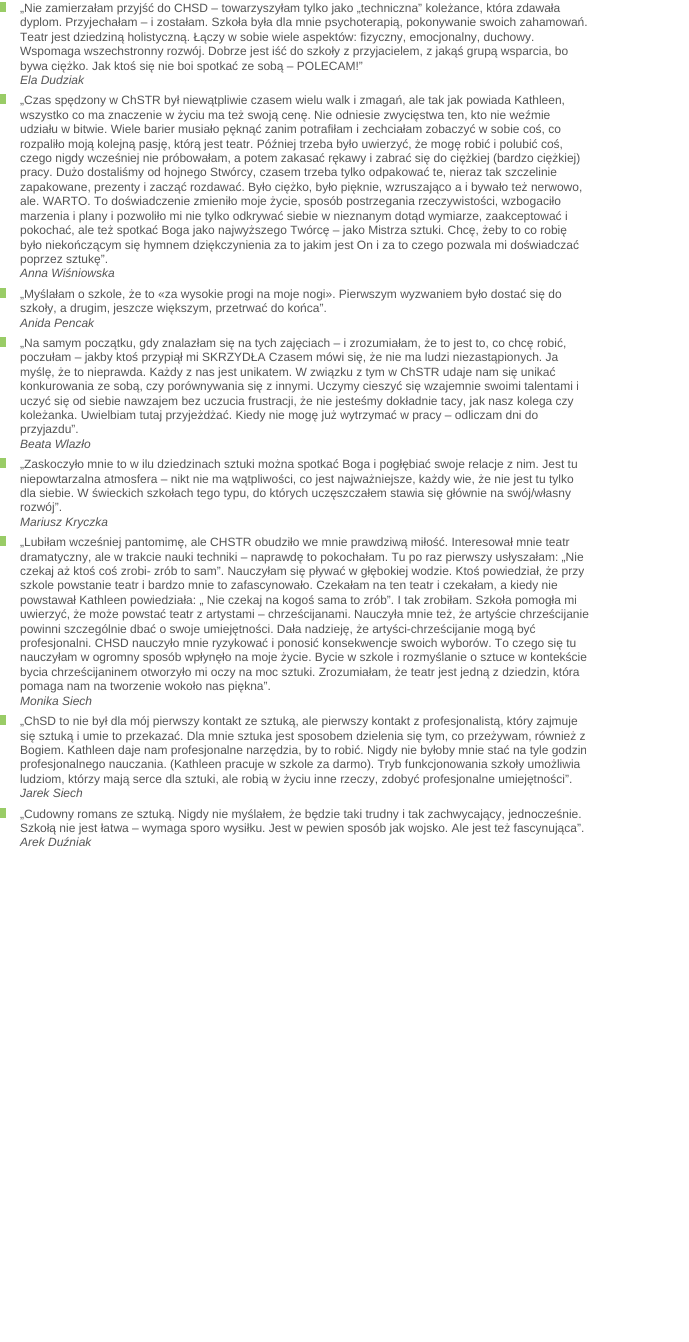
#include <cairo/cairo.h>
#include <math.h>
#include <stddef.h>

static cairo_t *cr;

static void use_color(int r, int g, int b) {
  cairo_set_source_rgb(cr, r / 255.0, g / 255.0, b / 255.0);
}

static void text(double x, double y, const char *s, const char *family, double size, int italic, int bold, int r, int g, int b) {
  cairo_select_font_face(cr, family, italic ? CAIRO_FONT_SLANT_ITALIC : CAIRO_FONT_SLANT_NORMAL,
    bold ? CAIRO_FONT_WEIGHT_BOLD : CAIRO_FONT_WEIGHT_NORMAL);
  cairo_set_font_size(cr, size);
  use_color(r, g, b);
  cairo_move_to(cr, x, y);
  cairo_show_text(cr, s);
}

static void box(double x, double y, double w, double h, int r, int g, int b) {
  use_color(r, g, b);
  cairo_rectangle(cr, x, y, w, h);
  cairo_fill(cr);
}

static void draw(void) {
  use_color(255, 255, 255);
  cairo_paint(cr);
  box(0, 2, 6, 10, 153, 204, 102);
  box(0, 94, 6, 10, 153, 204, 102);
  box(0, 288, 6, 10, 153, 204, 102);
  box(0, 337, 6, 10, 153, 204, 102);
  box(0, 458, 6, 10, 153, 204, 102);
  box(0, 536, 6, 10, 153, 204, 102);
  box(0, 715, 6, 10, 153, 204, 102);
  box(0, 808, 6, 10, 153, 204, 102);
  text(20, 12, "„Nie zamierzałam przyjść do CHSD – towarzyszyłam tylko jako „techniczna” koleżance, która zdawała", "Liberation Sans", 12, 0, 0, 85, 85, 85);
  text(20, 26, "dyplom. Przyjechałam – i zostałam. Szkoła była dla mnie psychoterapią, pokonywanie swoich zahamowań.", "Liberation Sans", 12, 0, 0, 85, 85, 85);
  text(20, 41, "Teatr jest dziedziną holistyczną. Łączy w sobie wiele aspektów: fizyczny, emocjonalny, duchowy.", "Liberation Sans", 12, 0, 0, 85, 85, 85);
  text(20, 55, "Wspomaga wszechstronny rozwój. Dobrze jest iść do szkoły z przyjacielem, z jakąś grupą wsparcia, bo", "Liberation Sans", 12, 0, 0, 85, 85, 85);
  text(20, 70, "bywa ciężko. Jak ktoś się nie boi spotkać ze sobą – POLECAM!”", "Liberation Sans", 12, 0, 0, 85, 85, 85);
  text(20, 84, "Ela Dudziak", "Liberation Sans", 12, 1, 0, 85, 85, 85);
  text(20, 104, "„Czas spędzony w ChSTR był niewątpliwie czasem wielu walk i zmagań, ale tak jak powiada Kathleen,", "Liberation Sans", 12, 0, 0, 85, 85, 85);
  text(20, 119, "wszystko co ma znaczenie w życiu ma też swoją cenę. Nie odniesie zwycięstwa ten, kto nie weźmie", "Liberation Sans", 12, 0, 0, 85, 85, 85);
  text(20, 133, "udziału w bitwie. Wiele barier musiało pęknąć zanim potrafiłam i zechciałam zobaczyć w sobie coś, co", "Liberation Sans", 12, 0, 0, 85, 85, 85);
  text(20, 148, "rozpaliło moją kolejną pasję, którą jest teatr. Później trzeba było uwierzyć, że mogę robić i polubić coś,", "Liberation Sans", 12, 0, 0, 85, 85, 85);
  text(20, 162, "czego nigdy wcześniej nie próbowałam, a potem zakasać rękawy i zabrać się do ciężkiej (bardzo ciężkiej)", "Liberation Sans", 12, 0, 0, 85, 85, 85);
  text(20, 176, "pracy. Dużo dostaliśmy od hojnego Stwórcy, czasem trzeba tylko odpakować te, nieraz tak szczelinie", "Liberation Sans", 12, 0, 0, 85, 85, 85);
  text(20, 191, "zapakowane, prezenty i zacząć rozdawać. Było ciężko, było pięknie, wzruszająco a i bywało też nerwowo,", "Liberation Sans", 12, 0, 0, 85, 85, 85);
  text(20, 205, "ale. WARTO. To doświadczenie zmieniło moje życie, sposób postrzegania rzeczywistości, wzbogaciło", "Liberation Sans", 12, 0, 0, 85, 85, 85);
  text(20, 220, "marzenia i plany i pozwoliło mi nie tylko odkrywać siebie w nieznanym dotąd wymiarze, zaakceptować i", "Liberation Sans", 12, 0, 0, 85, 85, 85);
  text(20, 234, "pokochać, ale też spotkać Boga jako najwyższego Twórcę – jako Mistrza sztuki. Chcę, żeby to co robię", "Liberation Sans", 12, 0, 0, 85, 85, 85);
  text(20, 249, "było niekończącym się hymnem dziękczynienia za to jakim jest On i za to czego pozwala mi doświadczać", "Liberation Sans", 12, 0, 0, 85, 85, 85);
  text(20, 263, "poprzez sztukę”.", "Liberation Sans", 12, 0, 0, 85, 85, 85);
  text(20, 277, "Anna Wiśniowska", "Liberation Sans", 12, 1, 0, 85, 85, 85);
  text(20, 298, "„Myślałam o szkole, że to «za wysokie progi na moje nogi». Pierwszym wyzwaniem było dostać się do", "Liberation Sans", 12, 0, 0, 85, 85, 85);
  text(20, 312, "szkoły, a drugim, jeszcze większym, przetrwać do końca”.", "Liberation Sans", 12, 0, 0, 85, 85, 85);
  text(20, 327, "Anida Pencak", "Liberation Sans", 12, 1, 0, 85, 85, 85);
  text(20, 347, "„Na samym początku, gdy znalazłam się na tych zajęciach – i zrozumiałam, że to jest to, co chcę robić,", "Liberation Sans", 12, 0, 0, 85, 85, 85);
  text(20, 361, "poczułam – jakby ktoś przypiął mi SKRZYDŁA Czasem mówi się, że nie ma ludzi niezastąpionych. Ja", "Liberation Sans", 12, 0, 0, 85, 85, 85);
  text(20, 376, "myślę, że to nieprawda. Każdy z nas jest unikatem. W związku z tym w ChSTR udaje nam się unikać", "Liberation Sans", 12, 0, 0, 85, 85, 85);
  text(20, 390, "konkurowania ze sobą, czy porównywania się z innymi. Uczymy cieszyć się wzajemnie swoimi talentami i", "Liberation Sans", 12, 0, 0, 85, 85, 85);
  text(20, 405, "uczyć się od siebie nawzajem bez uczucia frustracji, że nie jesteśmy dokładnie tacy, jak nasz kolega czy", "Liberation Sans", 12, 0, 0, 85, 85, 85);
  text(20, 419, "koleżanka. Uwielbiam tutaj przyjeżdżać. Kiedy nie mogę już wytrzymać w pracy – odliczam dni do", "Liberation Sans", 12, 0, 0, 85, 85, 85);
  text(20, 433, "przyjazdu”.", "Liberation Sans", 12, 0, 0, 85, 85, 85);
  text(20, 448, "Beata Wlazło", "Liberation Sans", 12, 1, 0, 85, 85, 85);
  text(20, 468, "„Zaskoczyło mnie to w ilu dziedzinach sztuki można spotkać Boga i pogłębiać swoje relacje z nim. Jest tu", "Liberation Sans", 12, 0, 0, 85, 85, 85);
  text(20, 483, "niepowtarzalna atmosfera – nikt nie ma wątpliwości, co jest najważniejsze, każdy wie, że nie jest tu tylko", "Liberation Sans", 12, 0, 0, 85, 85, 85);
  text(20, 497, "dla siebie. W świeckich szkołach tego typu, do których uczęszczałem stawia się głównie na swój/własny", "Liberation Sans", 12, 0, 0, 85, 85, 85);
  text(20, 511, "rozwój”.", "Liberation Sans", 12, 0, 0, 85, 85, 85);
  text(20, 526, "Mariusz Kryczka", "Liberation Sans", 12, 1, 0, 85, 85, 85);
  text(20, 546, "„Lubiłam wcześniej pantomimę, ale CHSTR obudziło we mnie prawdziwą miłość. Interesował mnie teatr", "Liberation Sans", 12, 0, 0, 85, 85, 85);
  text(20, 561, "dramatyczny, ale w trakcie nauki techniki – naprawdę to pokochałam. Tu po raz pierwszy usłyszałam: „Nie", "Liberation Sans", 12, 0, 0, 85, 85, 85);
  text(20, 575, "czekaj aż ktoś coś zrobi- zrób to sam”. Nauczyłam się pływać w głębokiej wodzie. Ktoś powiedział, że przy", "Liberation Sans", 12, 0, 0, 85, 85, 85);
  text(20, 589, "szkole powstanie teatr i bardzo mnie to zafascynowało. Czekałam na ten teatr i czekałam, a kiedy nie", "Liberation Sans", 12, 0, 0, 85, 85, 85);
  text(20, 604, "powstawał Kathleen powiedziała: „ Nie czekaj na kogoś sama to zrób”. I tak zrobiłam. Szkoła pomogła mi", "Liberation Sans", 12, 0, 0, 85, 85, 85);
  text(20, 618, "uwierzyć, że może powstać teatr z artystami – chrześcijanami. Nauczyła mnie też, że artyście chrześcijanie", "Liberation Sans", 12, 0, 0, 85, 85, 85);
  text(20, 633, "powinni szczególnie dbać o swoje umiejętności. Dała nadzieję, że artyści-chrześcijanie mogą być", "Liberation Sans", 12, 0, 0, 85, 85, 85);
  text(20, 647, "profesjonalni. CHSD nauczyło mnie ryzykować i ponosić konsekwencje swoich wyborów. To czego się tu", "Liberation Sans", 12, 0, 0, 85, 85, 85);
  text(20, 661, "nauczyłam w ogromny sposób wpłynęło na moje życie. Bycie w szkole i rozmyślanie o sztuce w kontekście", "Liberation Sans", 12, 0, 0, 85, 85, 85);
  text(20, 676, "bycia chrześcijaninem otworzyło mi oczy na moc sztuki. Zrozumiałam, że teatr jest jedną z dziedzin, która", "Liberation Sans", 12, 0, 0, 85, 85, 85);
  text(20, 690, "pomaga nam na tworzenie wokoło nas piękna”.", "Liberation Sans", 12, 0, 0, 85, 85, 85);
  text(20, 705, "Monika Siech", "Liberation Sans", 12, 1, 0, 85, 85, 85);
  text(20, 725, "„ChSD to nie był dla mój pierwszy kontakt ze sztuką, ale pierwszy kontakt z profesjonalistą, który zajmuje", "Liberation Sans", 12, 0, 0, 85, 85, 85);
  text(20, 740, "się sztuką i umie to przekazać. Dla mnie sztuka jest sposobem dzielenia się tym, co przeżywam, również z", "Liberation Sans", 12, 0, 0, 85, 85, 85);
  text(20, 754, "Bogiem. Kathleen daje nam profesjonalne narzędzia, by to robić. Nigdy nie byłoby mnie stać na tyle godzin", "Liberation Sans", 12, 0, 0, 85, 85, 85);
  text(20, 768, "profesjonalnego nauczania. (Kathleen pracuje w szkole za darmo). Tryb funkcjonowania szkoły umożliwia", "Liberation Sans", 12, 0, 0, 85, 85, 85);
  text(20, 783, "ludziom, którzy mają serce dla sztuki, ale robią w życiu inne rzeczy, zdobyć profesjonalne umiejętności”.", "Liberation Sans", 12, 0, 0, 85, 85, 85);
  text(20, 797, "Jarek Siech", "Liberation Sans", 12, 1, 0, 85, 85, 85);
  text(20, 818, "„Cudowny romans ze sztuką. Nigdy nie myślałem, że będzie taki trudny i tak zachwycający, jednocześnie.", "Liberation Sans", 12, 0, 0, 85, 85, 85);
  text(20, 832, "Szkołą nie jest łatwa – wymaga sporo wysiłku. Jest w pewien sposób jak wojsko. Ale jest też fascynująca”.", "Liberation Sans", 12, 0, 0, 85, 85, 85);
  text(20, 846, "Arek Duźniak", "Liberation Sans", 12, 1, 0, 85, 85, 85);
}

int main(void) {
  cairo_surface_t *surface = cairo_image_surface_create(CAIRO_FORMAT_RGB24, 689, 1342);
  cr = cairo_create(surface);
  cairo_font_options_t *options = cairo_font_options_create();
  cairo_font_options_set_hint_metrics(options, CAIRO_HINT_METRICS_OFF);
  cairo_font_options_set_hint_style(options, CAIRO_HINT_STYLE_NONE);
  cairo_set_font_options(cr, options);
  cairo_set_miter_limit(cr, 4);
  draw();
  cairo_surface_write_to_png(surface, "out.png");
  cairo_font_options_destroy(options);
  cairo_destroy(cr);
  cairo_surface_destroy(surface);
  return 0;
}
